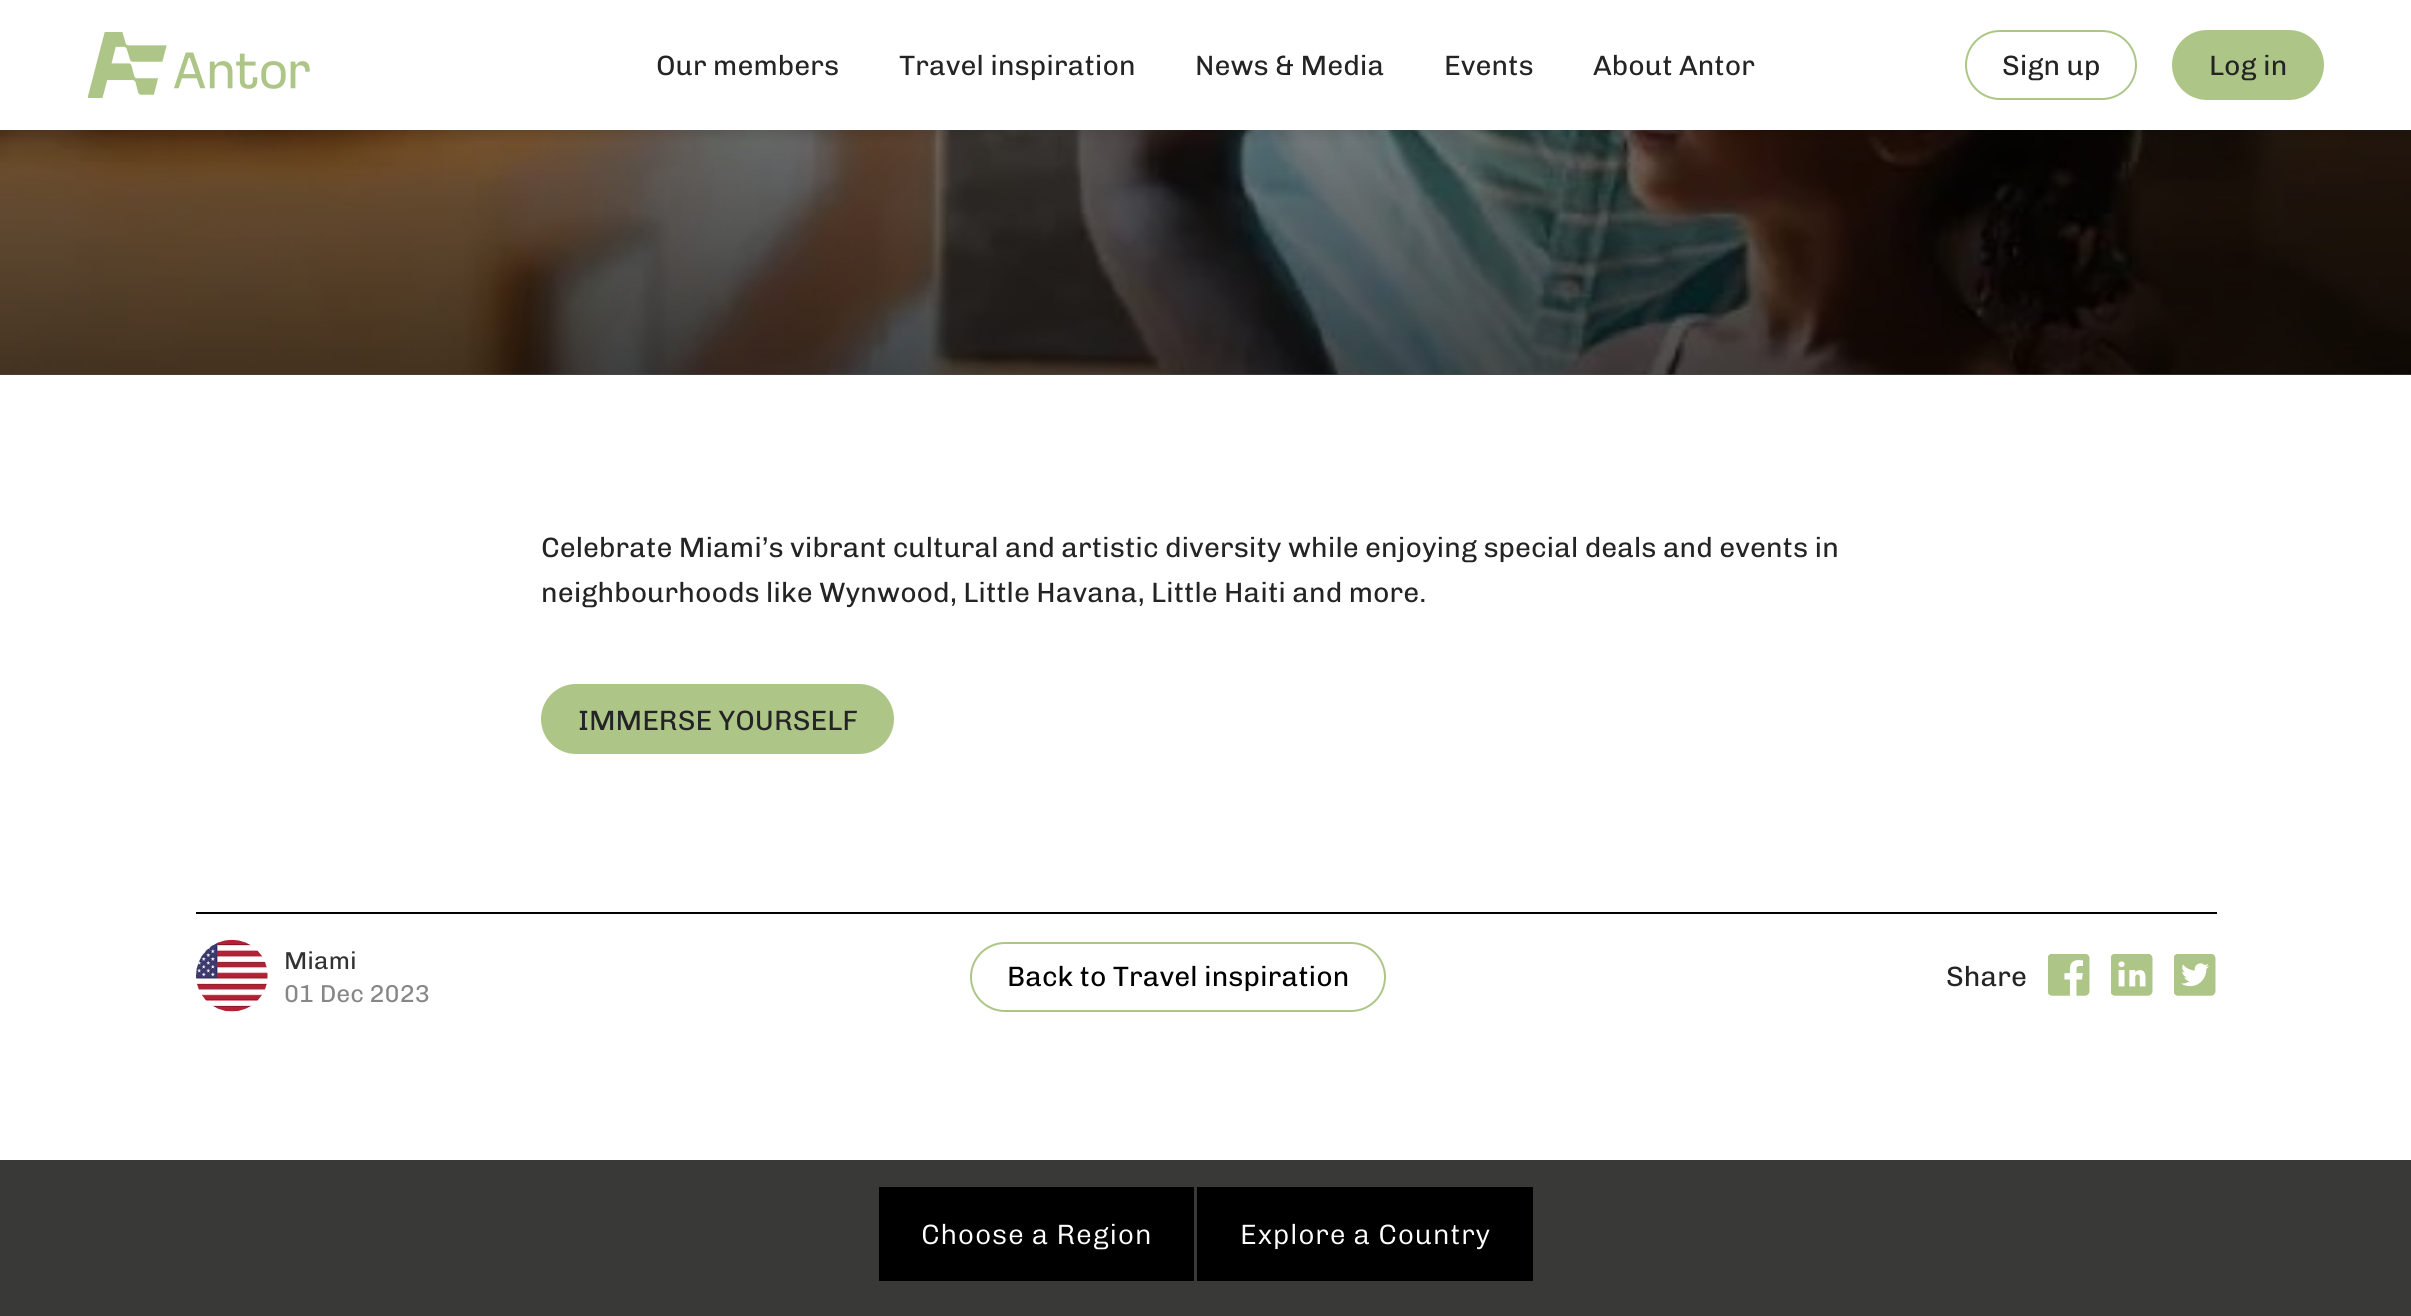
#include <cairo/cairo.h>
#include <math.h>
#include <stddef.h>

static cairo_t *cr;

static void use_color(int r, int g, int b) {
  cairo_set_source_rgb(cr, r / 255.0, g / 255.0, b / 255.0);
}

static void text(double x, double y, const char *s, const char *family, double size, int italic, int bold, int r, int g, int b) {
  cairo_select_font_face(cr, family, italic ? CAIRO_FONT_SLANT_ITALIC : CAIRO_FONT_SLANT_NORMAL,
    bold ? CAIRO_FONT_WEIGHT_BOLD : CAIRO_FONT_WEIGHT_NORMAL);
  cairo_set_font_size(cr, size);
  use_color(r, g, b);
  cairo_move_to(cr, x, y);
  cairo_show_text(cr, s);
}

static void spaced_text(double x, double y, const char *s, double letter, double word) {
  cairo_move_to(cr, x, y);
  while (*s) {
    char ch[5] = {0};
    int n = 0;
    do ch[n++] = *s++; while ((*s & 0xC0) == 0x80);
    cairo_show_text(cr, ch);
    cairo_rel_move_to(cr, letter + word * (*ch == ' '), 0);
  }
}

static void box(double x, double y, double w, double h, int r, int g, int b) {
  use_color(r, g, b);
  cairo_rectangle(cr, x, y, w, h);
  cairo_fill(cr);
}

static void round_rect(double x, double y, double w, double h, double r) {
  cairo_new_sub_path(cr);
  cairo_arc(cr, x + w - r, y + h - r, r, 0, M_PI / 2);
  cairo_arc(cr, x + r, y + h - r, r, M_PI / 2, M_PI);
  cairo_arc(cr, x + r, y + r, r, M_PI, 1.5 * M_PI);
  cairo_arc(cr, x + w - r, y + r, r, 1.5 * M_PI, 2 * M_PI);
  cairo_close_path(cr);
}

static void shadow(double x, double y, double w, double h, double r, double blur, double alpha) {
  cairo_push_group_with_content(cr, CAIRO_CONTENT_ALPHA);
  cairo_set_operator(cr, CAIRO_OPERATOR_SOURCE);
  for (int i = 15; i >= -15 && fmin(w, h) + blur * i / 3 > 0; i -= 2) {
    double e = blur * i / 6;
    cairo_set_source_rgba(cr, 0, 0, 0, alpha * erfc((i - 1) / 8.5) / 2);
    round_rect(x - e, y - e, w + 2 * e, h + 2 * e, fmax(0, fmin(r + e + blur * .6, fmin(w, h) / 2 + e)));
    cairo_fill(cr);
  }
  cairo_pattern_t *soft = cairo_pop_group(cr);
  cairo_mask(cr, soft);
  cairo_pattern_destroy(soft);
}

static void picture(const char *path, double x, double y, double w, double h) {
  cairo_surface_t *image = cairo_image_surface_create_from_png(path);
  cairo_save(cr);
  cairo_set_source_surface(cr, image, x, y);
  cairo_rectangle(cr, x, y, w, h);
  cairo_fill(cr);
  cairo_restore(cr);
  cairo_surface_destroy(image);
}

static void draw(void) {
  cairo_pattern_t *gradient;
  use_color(255, 255, 255);
  cairo_paint(cr);
  picture("img_02.png", 0, 130, 2411, 245);
  gradient = cairo_pattern_create_linear(1206, -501, 1206, 375);
  cairo_pattern_add_color_stop_rgba(gradient, 0, 0, 0, 0, 0);
  cairo_pattern_add_color_stop_rgba(gradient, 1, 0, 0, 0, 0.7);
  cairo_set_source(cr, gradient);
  cairo_pattern_destroy(gradient);
  cairo_rectangle(cr, 0, 130, 2411, 245);
  cairo_fill(cr);
  use_color(0, 0, 0);
  shadow(0, 4, 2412, 129, 0, 7, 0.16);
  box(0, 0, 2411, 130, 255, 255, 255);
  picture("img_01.png", 88, 32, 222, 66);
  round_rect(1966, 31, 170, 68, 34);
  use_color(173, 198, 135);
  cairo_stroke(cr);
  round_rect(2173, 31, 150, 68, 34);
  cairo_fill_preserve(cr);
  cairo_stroke(cr);
  round_rect(542, 685, 351, 68, 34);
  cairo_fill_preserve(cr);
  cairo_stroke(cr);
  box(196, 912, 2021, 2, 0, 0, 0);
  picture("img_03.png", 196, 939, 72, 73);
  round_rect(971, 943, 414, 68, 34);
  use_color(173, 198, 135);
  cairo_stroke(cr);
  picture("img_04.png", 2048, 954, 42, 42);
  picture("img_05.png", 2111, 954, 42, 42);
  picture("img_06.png", 2174, 954, 42, 42);
  box(0, 1160, 2411, 156, 57, 57, 56);
  box(879, 1187, 315, 94, 0, 0, 0);
  box(1197, 1187, 336, 94, 0, 0, 0);
  text(656, 75, "Our members", "Chivo", 28, 0, 0, 36, 36, 36);
  text(899, 75, "Travel inspiration", "Chivo", 28, 0, 0, 36, 36, 36);
  text(1195, 75, "News & Media", "Chivo", 28, 0, 0, 36, 36, 36);
  text(1444, 75, "Events", "Chivo", 28, 0, 0, 36, 36, 36);
  text(1593, 75, "About Antor", "Chivo", 28, 0, 0, 36, 36, 36);
  text(2002, 75, "Sign up", "Chivo", 28, 0, 0, 36, 36, 36);
  text(2209, 75, "Log in", "Chivo", 28, 0, 0, 36, 36, 36);
  text(541, 557, "Celebrate Miami’s vibrant cultural and artistic diversity while enjoying special deals and events in", "Chivo", 28, 0, 0, 36, 36, 36);
  text(541, 602, "neighbourhoods like Wynwood, Little Havana, Little Haiti and more.", "Chivo", 28, 0, 0, 36, 36, 36);
  text(578, 730, "IMMERSE YOURSELF", "Chivo", 28, 0, 0, 36, 36, 36);
  text(284, 969, "Miami", "Chivo", 24.5, 0, 0, 50, 50, 50);
  text(284, 1002, "01 Dec 2023", "Chivo", 24.5, 0, 0, 135, 135, 135);
  text(1007, 986, "Back to Travel inspiration", "Chivo", 28, 0, 0, 0, 0, 0);
  text(1946, 986, "Share", "Chivo", 28, 0, 0, 36, 36, 36);
  cairo_select_font_face(cr, "Chivo Light", CAIRO_FONT_SLANT_NORMAL, CAIRO_FONT_WEIGHT_NORMAL);
  use_color(255, 255, 255);
  spaced_text(921, 1244, "Choose a Region", 0.75, 0);
  spaced_text(1240, 1244, "Explore a Country", 0.75, 0);
}

int main(void) {
  cairo_surface_t *surface = cairo_image_surface_create(CAIRO_FORMAT_RGB24, 2411, 1316);
  cr = cairo_create(surface);
  cairo_font_options_t *options = cairo_font_options_create();
  cairo_font_options_set_hint_metrics(options, CAIRO_HINT_METRICS_OFF);
  cairo_font_options_set_hint_style(options, CAIRO_HINT_STYLE_NONE);
  cairo_set_font_options(cr, options);
  cairo_set_miter_limit(cr, 4);
  draw();
  cairo_surface_write_to_png(surface, "out.png");
  cairo_font_options_destroy(options);
  cairo_destroy(cr);
  cairo_surface_destroy(surface);
  return 0;
}
